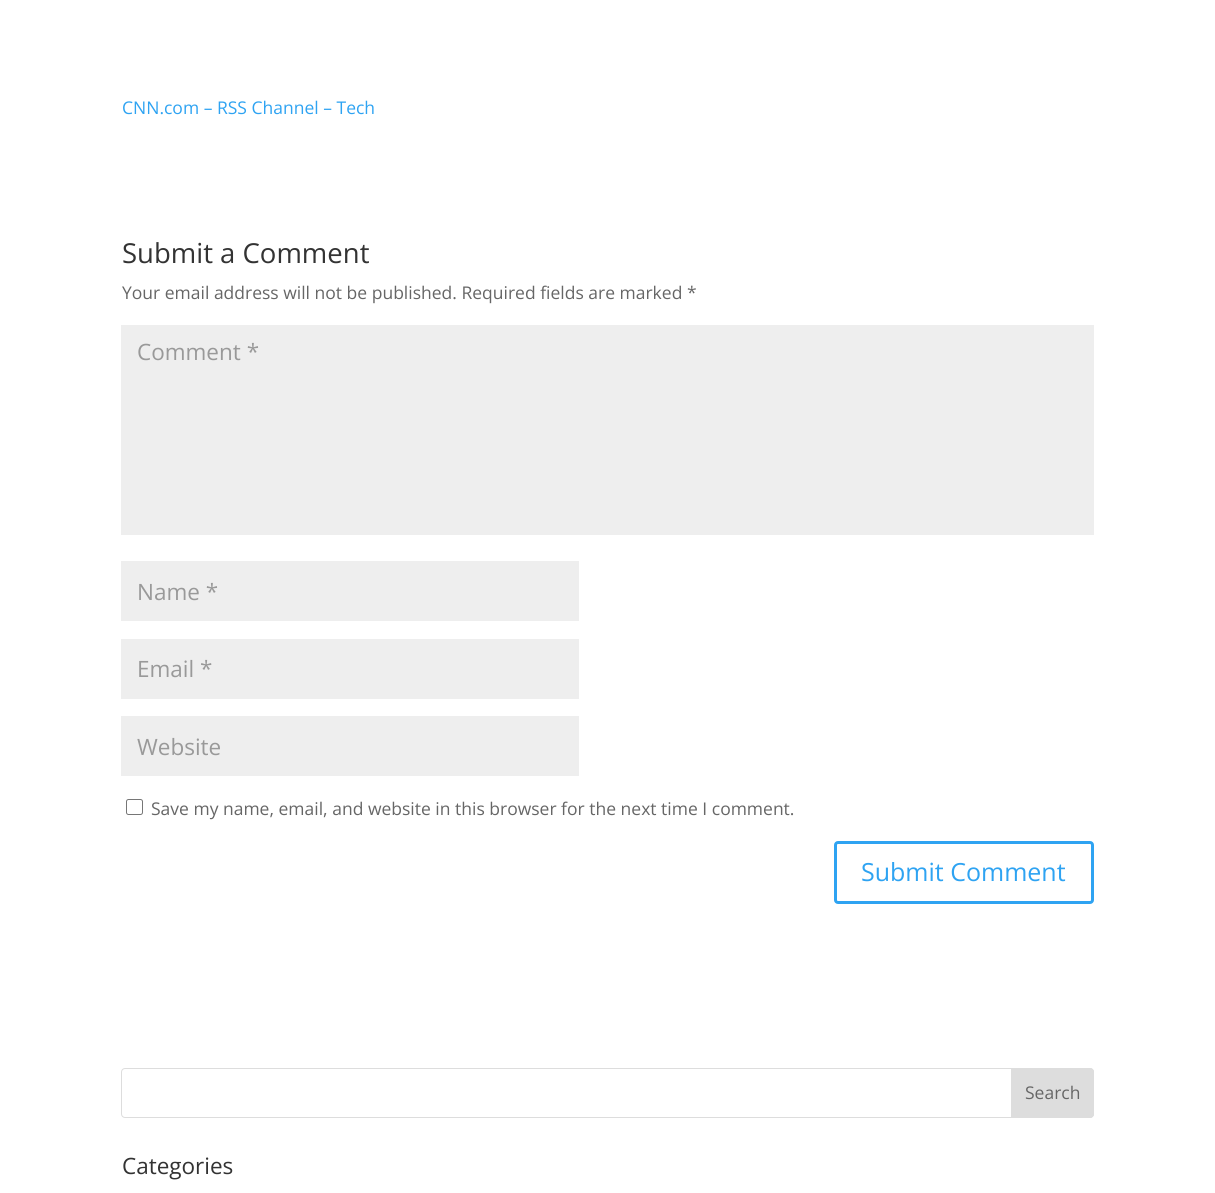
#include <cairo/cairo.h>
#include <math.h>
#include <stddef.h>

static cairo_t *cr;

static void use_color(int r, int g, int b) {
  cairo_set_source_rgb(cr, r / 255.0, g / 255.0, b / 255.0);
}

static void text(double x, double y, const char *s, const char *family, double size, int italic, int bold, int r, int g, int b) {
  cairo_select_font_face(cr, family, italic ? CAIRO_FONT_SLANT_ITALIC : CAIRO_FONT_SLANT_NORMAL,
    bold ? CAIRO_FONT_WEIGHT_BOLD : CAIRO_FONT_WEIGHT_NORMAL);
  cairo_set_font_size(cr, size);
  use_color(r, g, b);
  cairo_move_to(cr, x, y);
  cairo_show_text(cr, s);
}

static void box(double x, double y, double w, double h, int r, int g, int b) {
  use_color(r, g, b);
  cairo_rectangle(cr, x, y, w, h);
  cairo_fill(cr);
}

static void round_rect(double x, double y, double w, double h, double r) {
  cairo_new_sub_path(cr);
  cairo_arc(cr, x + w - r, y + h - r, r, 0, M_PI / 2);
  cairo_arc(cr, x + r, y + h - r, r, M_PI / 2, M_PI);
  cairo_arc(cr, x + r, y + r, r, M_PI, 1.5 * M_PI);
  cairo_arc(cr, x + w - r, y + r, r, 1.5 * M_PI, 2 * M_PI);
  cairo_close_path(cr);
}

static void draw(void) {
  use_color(255, 255, 255);
  cairo_paint(cr);
  box(121, 325, 973, 210, 238, 238, 238);
  box(121, 561, 458, 60, 238, 238, 238);
  box(121, 639, 458, 60, 238, 238, 238);
  box(121, 716, 458, 60, 238, 238, 238);
  round_rect(126.5, 799.5, 16, 15, 2);
  use_color(118, 118, 118);
  cairo_set_line_width(cr, 1);
  cairo_stroke(cr);
  round_rect(835.5, 842.5, 257, 60, 2.5);
  use_color(46, 163, 242);
  cairo_set_line_width(cr, 3);
  cairo_stroke(cr);
  round_rect(121.5, 1068.5, 972, 49, 3.5);
  use_color(221, 221, 221);
  cairo_set_line_width(cr, 1);
  cairo_stroke(cr);
  cairo_new_path(cr);
  cairo_move_to(cr, 1011.5, 1068.5);
  cairo_line_to(cr, 1090, 1068.5);
  cairo_curve_to(cr, 1092, 1068.5, 1093.5, 1070, 1093.5, 1072);
  cairo_line_to(cr, 1093.5, 1114);
  cairo_curve_to(cr, 1093.5, 1116, 1092, 1117.5, 1090, 1117.5);
  cairo_line_to(cr, 1011.5, 1117.5);
  cairo_close_path(cr);
  cairo_fill_preserve(cr);
  cairo_stroke(cr);
  text(122, 114, "CNN.com – RSS Channel – Tech", "Open Sans", 17.5, 0, 0, 46, 163, 242);
  text(122, 263, "Submit a Comment", "Open Sans", 27.5, 0, 0, 51, 51, 51);
  text(122, 299, "Your email address will not be published. Required fields are marked *", "Open Sans", 17.5, 0, 0, 102, 102, 102);
  text(137, 360, "Comment *", "Open Sans", 22.5, 0, 0, 153, 153, 153);
  text(137, 600, "Name *", "Open Sans", 22.5, 0, 0, 153, 153, 153);
  text(137, 677, "Email *", "Open Sans", 22.5, 0, 0, 153, 153, 153);
  text(137, 755, "Website", "Open Sans", 22.5, 0, 0, 153, 153, 153);
  text(151, 815, "Save my name, email, and website in this browser for the next time I comment.", "Open Sans", 17.5, 0, 0, 102, 102, 102);
  text(861, 881, "Submit Comment", "Open Sans", 25, 0, 0, 46, 163, 242);
  text(1025, 1099, "Search", "Open Sans", 17.5, 0, 0, 102, 102, 102);
  text(122, 1174, "Categories", "Open Sans", 22.5, 0, 0, 51, 51, 51);
}

int main(void) {
  cairo_surface_t *surface = cairo_image_surface_create(CAIRO_FORMAT_RGB24, 1215, 1193);
  cr = cairo_create(surface);
  cairo_font_options_t *options = cairo_font_options_create();
  cairo_font_options_set_hint_metrics(options, CAIRO_HINT_METRICS_OFF);
  cairo_font_options_set_hint_style(options, CAIRO_HINT_STYLE_NONE);
  cairo_set_font_options(cr, options);
  cairo_set_miter_limit(cr, 4);
  draw();
  cairo_surface_write_to_png(surface, "out.png");
  cairo_font_options_destroy(options);
  cairo_destroy(cr);
  cairo_surface_destroy(surface);
  return 0;
}
